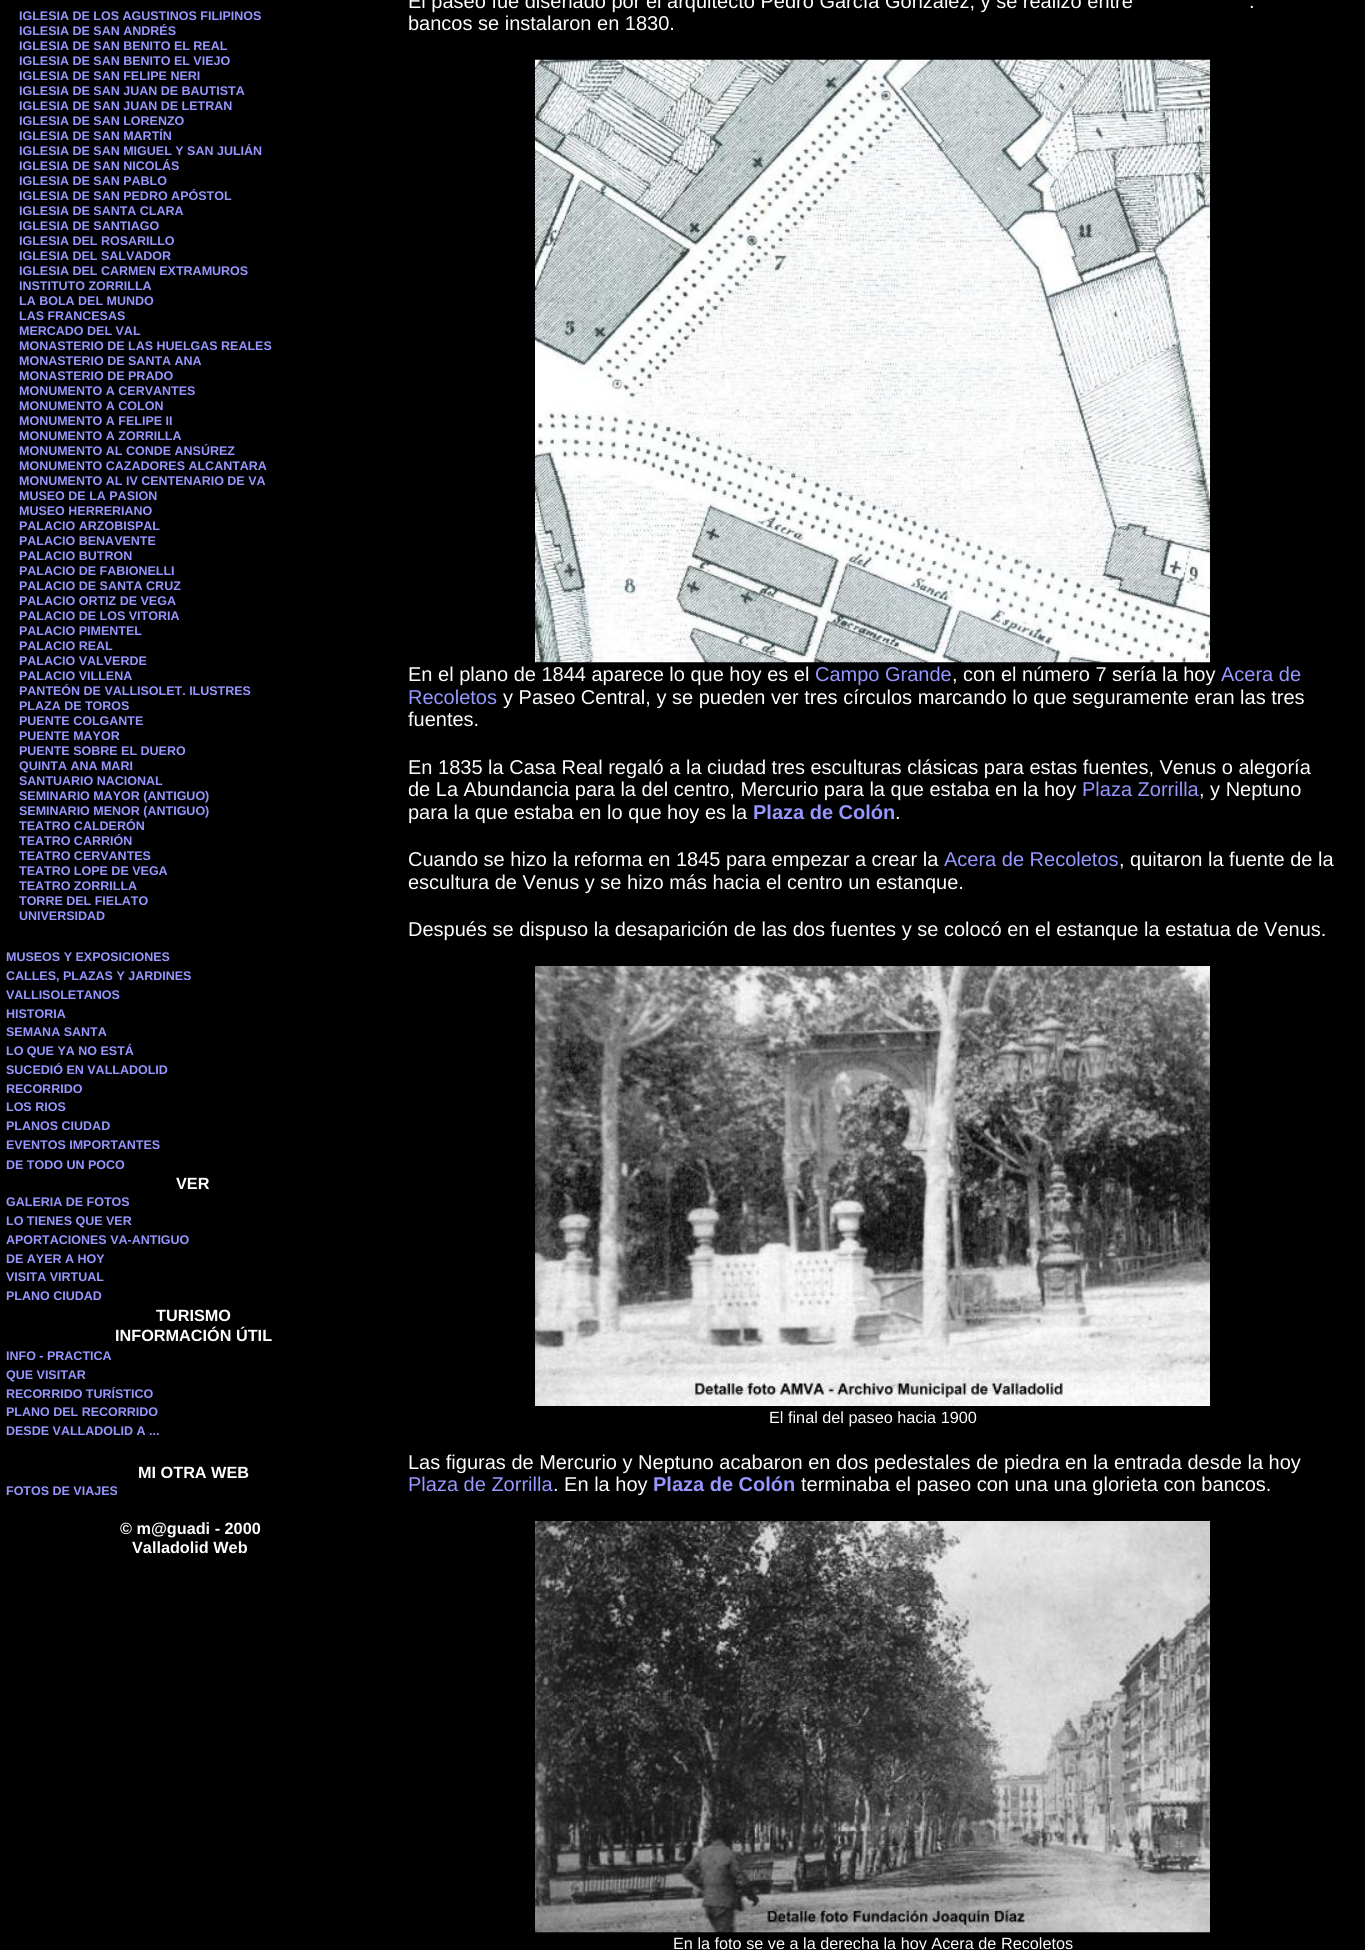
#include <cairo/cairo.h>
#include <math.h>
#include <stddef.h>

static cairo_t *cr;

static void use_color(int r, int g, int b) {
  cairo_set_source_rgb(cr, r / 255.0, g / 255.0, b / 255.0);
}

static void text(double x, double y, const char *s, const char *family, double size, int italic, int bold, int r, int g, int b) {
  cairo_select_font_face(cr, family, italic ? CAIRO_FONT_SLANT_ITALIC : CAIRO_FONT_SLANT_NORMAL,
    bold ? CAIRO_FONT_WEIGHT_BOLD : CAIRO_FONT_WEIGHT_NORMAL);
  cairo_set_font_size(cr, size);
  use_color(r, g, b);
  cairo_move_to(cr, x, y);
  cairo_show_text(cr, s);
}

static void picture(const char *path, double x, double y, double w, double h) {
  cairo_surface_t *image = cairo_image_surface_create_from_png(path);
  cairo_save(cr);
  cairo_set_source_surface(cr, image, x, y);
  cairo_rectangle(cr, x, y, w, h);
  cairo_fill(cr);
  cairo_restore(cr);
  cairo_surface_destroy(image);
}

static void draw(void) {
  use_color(0, 0, 0);
  cairo_paint(cr);
  picture("img_01.png", 535, 59, 675, 604);
  picture("img_02.png", 535, 966, 675, 440);
  picture("img_03.png", 535, 1521, 675, 412);
  text(19, 20, "IGLESIA DE LOS AGUSTINOS FILIPINOS", "Liberation Sans", 12.5, 0, 1, 151, 151, 255);
  text(19, 35, "IGLESIA DE SAN ANDRÉS", "Liberation Sans", 12.5, 0, 1, 151, 151, 255);
  text(19, 50, "IGLESIA DE SAN BENITO EL REAL", "Liberation Sans", 12.5, 0, 1, 151, 151, 255);
  text(19, 65, "IGLESIA DE SAN BENITO EL VIEJO", "Liberation Sans", 12.5, 0, 1, 151, 151, 255);
  text(19, 80, "IGLESIA DE SAN FELIPE NERI", "Liberation Sans", 12.5, 0, 1, 151, 151, 255);
  text(19, 95, "IGLESIA DE SAN JUAN DE BAUTISTA", "Liberation Sans", 12.5, 0, 1, 151, 151, 255);
  text(19, 110, "IGLESIA DE SAN JUAN DE LETRAN", "Liberation Sans", 12.5, 0, 1, 151, 151, 255);
  text(19, 125, "IGLESIA DE SAN LORENZO", "Liberation Sans", 12.5, 0, 1, 151, 151, 255);
  text(19, 140, "IGLESIA DE SAN MARTÍN", "Liberation Sans", 12.5, 0, 1, 151, 151, 255);
  text(19, 155, "IGLESIA DE SAN MIGUEL Y SAN JULIÁN", "Liberation Sans", 12.5, 0, 1, 151, 151, 255);
  text(19, 170, "IGLESIA DE SAN NICOLÁS", "Liberation Sans", 12.5, 0, 1, 151, 151, 255);
  text(19, 185, "IGLESIA DE SAN PABLO", "Liberation Sans", 12.5, 0, 1, 151, 151, 255);
  text(19, 200, "IGLESIA DE SAN PEDRO APÓSTOL", "Liberation Sans", 12.5, 0, 1, 151, 151, 255);
  text(19, 215, "IGLESIA DE SANTA CLARA", "Liberation Sans", 12.5, 0, 1, 151, 151, 255);
  text(19, 230, "IGLESIA DE SANTIAGO", "Liberation Sans", 12.5, 0, 1, 151, 151, 255);
  text(19, 245, "IGLESIA DEL ROSARILLO", "Liberation Sans", 12.5, 0, 1, 151, 151, 255);
  text(19, 260, "IGLESIA DEL SALVADOR", "Liberation Sans", 12.5, 0, 1, 151, 151, 255);
  text(19, 275, "IGLESIA DEL CARMEN EXTRAMUROS", "Liberation Sans", 12.5, 0, 1, 151, 151, 255);
  text(19, 290, "INSTITUTO ZORRILLA", "Liberation Sans", 12.5, 0, 1, 151, 151, 255);
  text(19, 305, "LA BOLA DEL MUNDO", "Liberation Sans", 12.5, 0, 1, 151, 151, 255);
  text(19, 320, "LAS FRANCESAS", "Liberation Sans", 12.5, 0, 1, 151, 151, 255);
  text(19, 335, "MERCADO DEL VAL", "Liberation Sans", 12.5, 0, 1, 151, 151, 255);
  text(19, 350, "MONASTERIO DE LAS HUELGAS REALES", "Liberation Sans", 12.5, 0, 1, 151, 151, 255);
  text(19, 365, "MONASTERIO DE SANTA ANA", "Liberation Sans", 12.5, 0, 1, 151, 151, 255);
  text(19, 380, "MONASTERIO DE PRADO", "Liberation Sans", 12.5, 0, 1, 151, 151, 255);
  text(19, 395, "MONUMENTO A CERVANTES", "Liberation Sans", 12.5, 0, 1, 151, 151, 255);
  text(19, 410, "MONUMENTO A COLON", "Liberation Sans", 12.5, 0, 1, 151, 151, 255);
  text(19, 425, "MONUMENTO A FELIPE II", "Liberation Sans", 12.5, 0, 1, 151, 151, 255);
  text(19, 440, "MONUMENTO A ZORRILLA", "Liberation Sans", 12.5, 0, 1, 151, 151, 255);
  text(19, 455, "MONUMENTO AL CONDE ANSÚREZ", "Liberation Sans", 12.5, 0, 1, 151, 151, 255);
  text(19, 470, "MONUMENTO CAZADORES ALCANTARA", "Liberation Sans", 12.5, 0, 1, 151, 151, 255);
  text(19, 485, "MONUMENTO AL IV CENTENARIO DE VA", "Liberation Sans", 12.5, 0, 1, 151, 151, 255);
  text(19, 500, "MUSEO DE LA PASION", "Liberation Sans", 12.5, 0, 1, 151, 151, 255);
  text(19, 515, "MUSEO HERRERIANO", "Liberation Sans", 12.5, 0, 1, 151, 151, 255);
  text(19, 530, "PALACIO ARZOBISPAL", "Liberation Sans", 12.5, 0, 1, 151, 151, 255);
  text(19, 545, "PALACIO BENAVENTE", "Liberation Sans", 12.5, 0, 1, 151, 151, 255);
  text(19, 560, "PALACIO BUTRON", "Liberation Sans", 12.5, 0, 1, 151, 151, 255);
  text(19, 575, "PALACIO DE FABIONELLI", "Liberation Sans", 12.5, 0, 1, 151, 151, 255);
  text(19, 590, "PALACIO DE SANTA CRUZ", "Liberation Sans", 12.5, 0, 1, 151, 151, 255);
  text(19, 605, "PALACIO ORTIZ DE VEGA", "Liberation Sans", 12.5, 0, 1, 151, 151, 255);
  text(19, 620, "PALACIO DE LOS VITORIA", "Liberation Sans", 12.5, 0, 1, 151, 151, 255);
  text(19, 635, "PALACIO PIMENTEL", "Liberation Sans", 12.5, 0, 1, 151, 151, 255);
  text(19, 650, "PALACIO REAL", "Liberation Sans", 12.5, 0, 1, 151, 151, 255);
  text(19, 665, "PALACIO VALVERDE", "Liberation Sans", 12.5, 0, 1, 151, 151, 255);
  text(19, 680, "PALACIO VILLENA", "Liberation Sans", 12.5, 0, 1, 151, 151, 255);
  text(19, 695, "PANTEÓN DE VALLISOLET. ILUSTRES", "Liberation Sans", 12.5, 0, 1, 151, 151, 255);
  text(19, 710, "PLAZA DE TOROS", "Liberation Sans", 12.5, 0, 1, 151, 151, 255);
  text(19, 725, "PUENTE COLGANTE", "Liberation Sans", 12.5, 0, 1, 151, 151, 255);
  text(19, 740, "PUENTE MAYOR", "Liberation Sans", 12.5, 0, 1, 151, 151, 255);
  text(19, 755, "PUENTE SOBRE EL DUERO", "Liberation Sans", 12.5, 0, 1, 151, 151, 255);
  text(19, 770, "QUINTA ANA MARI", "Liberation Sans", 12.5, 0, 1, 151, 151, 255);
  text(19, 785, "SANTUARIO NACIONAL", "Liberation Sans", 12.5, 0, 1, 151, 151, 255);
  text(19, 800, "SEMINARIO MAYOR (ANTIGUO)", "Liberation Sans", 12.5, 0, 1, 151, 151, 255);
  text(19, 815, "SEMINARIO MENOR (ANTIGUO)", "Liberation Sans", 12.5, 0, 1, 151, 151, 255);
  text(19, 830, "TEATRO CALDERÓN", "Liberation Sans", 12.5, 0, 1, 151, 151, 255);
  text(19, 845, "TEATRO CARRIÓN", "Liberation Sans", 12.5, 0, 1, 151, 151, 255);
  text(19, 860, "TEATRO CERVANTES", "Liberation Sans", 12.5, 0, 1, 151, 151, 255);
  text(19, 875, "TEATRO LOPE DE VEGA", "Liberation Sans", 12.5, 0, 1, 151, 151, 255);
  text(19, 890, "TEATRO ZORRILLA", "Liberation Sans", 12.5, 0, 1, 151, 151, 255);
  text(19, 905, "TORRE DEL FIELATO", "Liberation Sans", 12.5, 0, 1, 151, 151, 255);
  text(19, 920, "UNIVERSIDAD", "Liberation Sans", 12.5, 0, 1, 151, 151, 255);
  text(6, 961, "MUSEOS Y EXPOSICIONES", "Liberation Sans", 12.5, 0, 1, 151, 151, 255);
  text(6, 980, "CALLES, PLAZAS Y JARDINES", "Liberation Sans", 12.5, 0, 1, 151, 151, 255);
  text(6, 999, "VALLISOLETANOS", "Liberation Sans", 12.5, 0, 1, 151, 151, 255);
  text(6, 1018, "HISTORIA", "Liberation Sans", 12.5, 0, 1, 151, 151, 255);
  text(6, 1036, "SEMANA SANTA", "Liberation Sans", 12.5, 0, 1, 151, 151, 255);
  text(6, 1055, "LO QUE YA NO ESTÁ", "Liberation Sans", 12.5, 0, 1, 151, 151, 255);
  text(6, 1074, "SUCEDIÓ EN VALLADOLID", "Liberation Sans", 12.5, 0, 1, 151, 151, 255);
  text(6, 1093, "RECORRIDO", "Liberation Sans", 12.5, 0, 1, 151, 151, 255);
  text(6, 1111, "LOS RIOS", "Liberation Sans", 12.5, 0, 1, 151, 151, 255);
  text(6, 1130, "PLANOS CIUDAD", "Liberation Sans", 12.5, 0, 1, 151, 151, 255);
  text(6, 1149, "EVENTOS IMPORTANTES", "Liberation Sans", 12.5, 0, 1, 151, 151, 255);
  text(6, 1169, "DE TODO UN POCO", "Liberation Sans", 12.5, 0, 1, 151, 151, 255);
  text(176, 1189, "VER", "Liberation Sans", 16.25, 0, 1, 255, 255, 255);
  text(6, 1206, "GALERIA DE FOTOS", "Liberation Sans", 12.5, 0, 1, 151, 151, 255);
  text(6, 1225, "LO TIENES QUE VER", "Liberation Sans", 12.5, 0, 1, 151, 151, 255);
  text(6, 1244, "APORTACIONES VA-ANTIGUO", "Liberation Sans", 12.5, 0, 1, 151, 151, 255);
  text(6, 1263, "DE AYER A HOY", "Liberation Sans", 12.5, 0, 1, 151, 151, 255);
  text(6, 1281, "VISITA VIRTUAL", "Liberation Sans", 12.5, 0, 1, 151, 151, 255);
  text(6, 1300, "PLANO CIUDAD", "Liberation Sans", 12.5, 0, 1, 151, 151, 255);
  text(156, 1321, "TURISMO", "Liberation Sans", 16.25, 0, 1, 255, 255, 255);
  text(115, 1341, "INFORMACIÓN ÚTIL", "Liberation Sans", 16.25, 0, 1, 255, 255, 255);
  text(6, 1360, "INFO - PRACTICA", "Liberation Sans", 12.5, 0, 1, 151, 151, 255);
  text(6, 1379, "QUE VISITAR", "Liberation Sans", 12.5, 0, 1, 151, 151, 255);
  text(6, 1398, "RECORRIDO TURÍSTICO", "Liberation Sans", 12.5, 0, 1, 151, 151, 255);
  text(6, 1416, "PLANO DEL RECORRIDO", "Liberation Sans", 12.5, 0, 1, 151, 151, 255);
  text(6, 1435, "DESDE VALLADOLID A ...", "Liberation Sans", 12.5, 0, 1, 151, 151, 255);
  text(138, 1478, "MI OTRA WEB", "Liberation Sans", 16.25, 0, 1, 255, 255, 255);
  text(6, 1495, "FOTOS DE VIAJES", "Liberation Sans", 12.5, 0, 1, 151, 151, 255);
  text(120, 1534, "© m@guadi - 2000", "Liberation Sans", 16.25, 0, 1, 255, 255, 255);
  text(132, 1553, "Valladolid Web", "Liberation Sans", 16.25, 0, 1, 255, 255, 255);
  text(408, 8, "El paseo fue diseñado por el arquitecto Pedro García González, y se realizó entre", "Liberation Sans", 20, 0, 0, 255, 255, 255);
  text(1249, 8, ".", "Liberation Sans", 20, 0, 0, 255, 255, 255);
  text(408, 30, "bancos se instalaron en 1830.", "Liberation Sans", 20, 0, 0, 255, 255, 255);
  text(408, 681, "En el plano de 1844 aparece lo que hoy es el", "Liberation Sans", 20, 0, 0, 255, 255, 255);
  text(815, 681, "Campo Grande", "Liberation Sans", 20, 0, 0, 151, 151, 255);
  text(952, 681, ", con el número 7 sería la hoy", "Liberation Sans", 20, 0, 0, 255, 255, 255);
  text(1221, 681, "Acera de", "Liberation Sans", 20, 0, 0, 151, 151, 255);
  text(408, 704, "Recoletos", "Liberation Sans", 20, 0, 0, 151, 151, 255);
  text(503, 704, "y Paseo Central, y se pueden ver tres círculos marcando lo que seguramente eran las tres", "Liberation Sans", 20, 0, 0, 255, 255, 255);
  text(408, 726, "fuentes.", "Liberation Sans", 20, 0, 0, 255, 255, 255);
  text(408, 774, "En 1835 la Casa Real regaló a la ciudad tres esculturas clásicas para estas fuentes, Venus o alegoría", "Liberation Sans", 20, 0, 0, 255, 255, 255);
  text(408, 796, "de La Abundancia para la del centro, Mercurio para la que estaba en la hoy", "Liberation Sans", 20, 0, 0, 255, 255, 255);
  text(1082, 796, "Plaza Zorrilla", "Liberation Sans", 20, 0, 0, 151, 151, 255);
  text(1199, 796, ", y Neptuno", "Liberation Sans", 20, 0, 0, 255, 255, 255);
  text(408, 819, "para la que estaba en lo que hoy es la", "Liberation Sans", 20, 0, 0, 255, 255, 255);
  text(753, 819, "Plaza de Colón", "Liberation Sans", 20, 0, 1, 151, 151, 255);
  text(895, 819, ".", "Liberation Sans", 20, 0, 0, 255, 255, 255);
  text(408, 866, "Cuando se hizo la reforma en 1845 para empezar a crear la", "Liberation Sans", 20, 0, 0, 255, 255, 255);
  text(944, 866, "Acera de Recoletos", "Liberation Sans", 20, 0, 0, 151, 151, 255);
  text(1119, 866, ", quitaron la fuente de la", "Liberation Sans", 20, 0, 0, 255, 255, 255);
  text(408, 889, "escultura de Venus y se hizo más hacia el centro un estanque.", "Liberation Sans", 20, 0, 0, 255, 255, 255);
  text(408, 936, "Después se dispuso la desaparición de las dos fuentes y se colocó en el estanque la estatua de Venus.", "Liberation Sans", 20, 0, 0, 255, 255, 255);
  text(769, 1423, "El final del paseo hacia 1900", "Liberation Sans", 16.25, 0, 0, 255, 255, 255);
  text(408, 1469, "Las figuras de Mercurio y Neptuno acabaron en dos pedestales de piedra en la entrada desde la hoy", "Liberation Sans", 20, 0, 0, 255, 255, 255);
  text(408, 1491, "Plaza de Zorrilla", "Liberation Sans", 20, 0, 0, 151, 151, 255);
  text(553, 1491, ". En la hoy", "Liberation Sans", 20, 0, 0, 255, 255, 255);
  text(653, 1491, "Plaza de Colón", "Liberation Sans", 20, 0, 1, 151, 151, 255);
  text(801, 1491, "terminaba el paseo con una una glorieta con bancos.", "Liberation Sans", 20, 0, 0, 255, 255, 255);
  text(673, 1949, "En la foto se ve a la derecha la hoy Acera de Recoletos", "Liberation Sans", 16.25, 0, 0, 255, 255, 255);
}

int main(void) {
  cairo_surface_t *surface = cairo_image_surface_create(CAIRO_FORMAT_RGB24, 1365, 1950);
  cr = cairo_create(surface);
  cairo_font_options_t *options = cairo_font_options_create();
  cairo_font_options_set_hint_metrics(options, CAIRO_HINT_METRICS_OFF);
  cairo_font_options_set_hint_style(options, CAIRO_HINT_STYLE_NONE);
  cairo_set_font_options(cr, options);
  cairo_set_miter_limit(cr, 4);
  draw();
  cairo_surface_write_to_png(surface, "out.png");
  cairo_font_options_destroy(options);
  cairo_destroy(cr);
  cairo_surface_destroy(surface);
  return 0;
}
